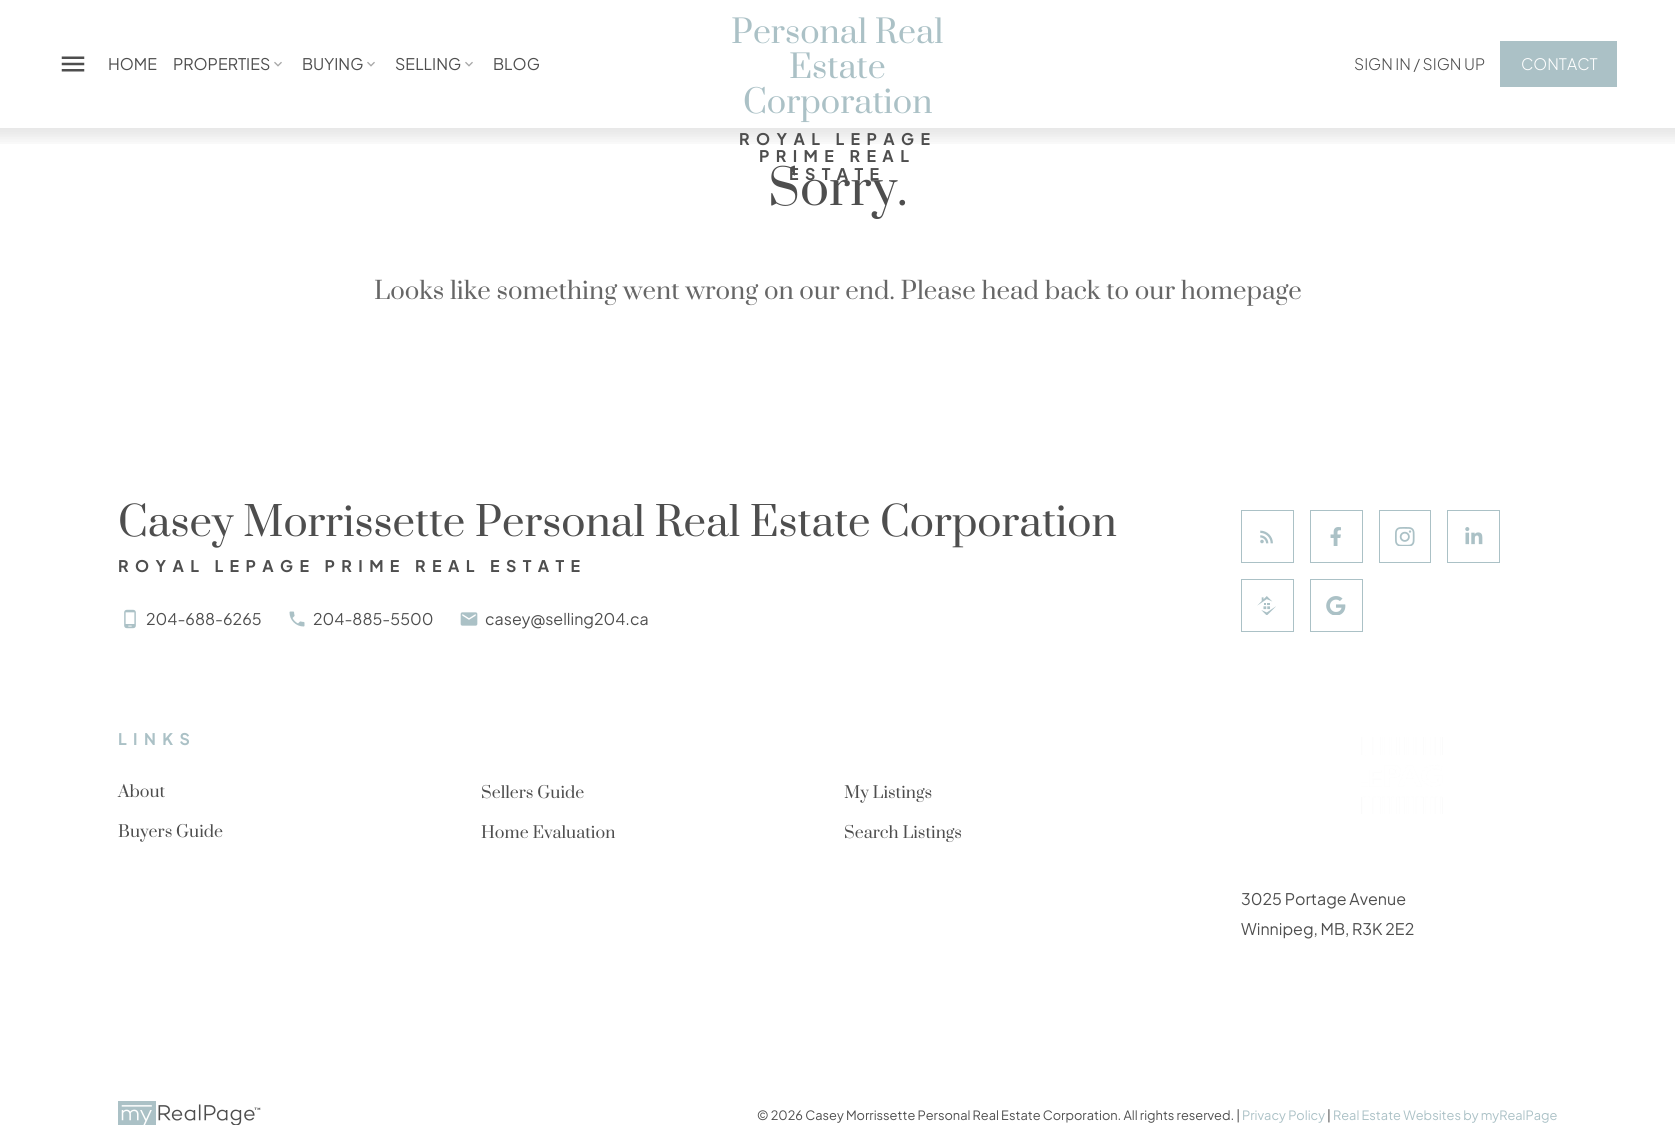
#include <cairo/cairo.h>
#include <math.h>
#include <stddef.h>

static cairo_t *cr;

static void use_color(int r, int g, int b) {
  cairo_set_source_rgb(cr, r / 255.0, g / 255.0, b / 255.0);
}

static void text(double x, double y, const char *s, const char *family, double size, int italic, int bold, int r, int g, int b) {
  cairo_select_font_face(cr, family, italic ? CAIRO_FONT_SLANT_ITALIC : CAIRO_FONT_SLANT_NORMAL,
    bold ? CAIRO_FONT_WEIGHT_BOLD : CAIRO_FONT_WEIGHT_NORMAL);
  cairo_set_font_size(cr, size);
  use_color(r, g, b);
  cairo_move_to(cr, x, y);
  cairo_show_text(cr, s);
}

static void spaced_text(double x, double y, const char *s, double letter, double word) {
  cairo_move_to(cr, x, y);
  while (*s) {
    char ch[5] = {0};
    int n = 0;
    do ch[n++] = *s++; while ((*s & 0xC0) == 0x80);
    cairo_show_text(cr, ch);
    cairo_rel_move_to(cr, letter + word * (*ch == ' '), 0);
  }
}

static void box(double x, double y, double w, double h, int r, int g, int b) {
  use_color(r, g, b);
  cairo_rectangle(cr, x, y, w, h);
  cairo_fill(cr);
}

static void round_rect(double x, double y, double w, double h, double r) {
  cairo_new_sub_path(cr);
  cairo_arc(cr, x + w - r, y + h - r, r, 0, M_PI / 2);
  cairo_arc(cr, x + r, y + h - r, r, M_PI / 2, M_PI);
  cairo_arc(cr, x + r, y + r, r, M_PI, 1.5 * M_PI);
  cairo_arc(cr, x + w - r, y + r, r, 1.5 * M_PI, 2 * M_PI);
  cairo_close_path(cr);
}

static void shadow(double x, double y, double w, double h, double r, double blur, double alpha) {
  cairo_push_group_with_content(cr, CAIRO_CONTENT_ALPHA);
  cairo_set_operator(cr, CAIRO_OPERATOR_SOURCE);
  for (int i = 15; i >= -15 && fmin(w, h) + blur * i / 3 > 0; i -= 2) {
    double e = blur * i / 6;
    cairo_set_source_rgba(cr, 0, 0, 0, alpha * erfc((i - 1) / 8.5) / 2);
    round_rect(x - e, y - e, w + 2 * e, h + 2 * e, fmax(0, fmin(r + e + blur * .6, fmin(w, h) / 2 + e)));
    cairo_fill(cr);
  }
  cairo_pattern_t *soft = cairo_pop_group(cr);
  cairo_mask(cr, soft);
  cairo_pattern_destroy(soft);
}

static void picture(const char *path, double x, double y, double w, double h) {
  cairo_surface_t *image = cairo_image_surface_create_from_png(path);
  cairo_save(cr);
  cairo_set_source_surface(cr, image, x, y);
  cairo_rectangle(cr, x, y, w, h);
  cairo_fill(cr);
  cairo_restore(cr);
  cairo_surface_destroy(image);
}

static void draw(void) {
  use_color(255, 255, 255);
  cairo_paint(cr);
  cairo_save(cr);
  cairo_rectangle(cr, 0, 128, 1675, 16);
  cairo_clip(cr);
  use_color(0, 0, 0);
  shadow(-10, -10, 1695, 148, 0, 7.5, 0.1);
  cairo_restore(cr);
  picture("img_01.png", 61, 56, 24, 16);
  picture("img_02.png", 274, 61, 8, 6);
  picture("img_02.png", 367, 61, 8, 6);
  picture("img_02.png", 465, 61, 8, 6);
  box(1500, 41, 117, 46, 171, 193, 198);
  picture("img_03.png", 124, 609, 12, 20);
  picture("img_04.png", 289, 611, 16, 16);
  picture("img_05.png", 460, 612, 18, 14);
  cairo_rectangle(cr, 1241.5, 510.5, 52, 52);
  cairo_set_line_width(cr, 1);
  cairo_stroke(cr);
  picture("img_06.png", 1260, 530, 13, 14);
  cairo_rectangle(cr, 1310.5, 510.5, 52, 52);
  cairo_stroke(cr);
  picture("img_07.png", 1330, 527, 11, 19);
  cairo_rectangle(cr, 1379.5, 510.5, 51, 52);
  cairo_stroke(cr);
  picture("img_08.png", 1395, 527, 20, 19);
  cairo_rectangle(cr, 1447.5, 510.5, 52, 52);
  cairo_stroke(cr);
  picture("img_09.png", 1465, 527, 18, 18);
  cairo_rectangle(cr, 1241.5, 579.5, 52, 52);
  cairo_stroke(cr);
  picture("img_10.png", 1257, 596, 19, 19);
  cairo_rectangle(cr, 1310.5, 579.5, 52, 52);
  cairo_stroke(cr);
  picture("img_11.png", 1326, 596, 20, 19);
  picture("img_12.png", 1361, 737, 82, 77);
  picture("img_13.png", 118, 1101, 143, 24);
  text(108, 70, "HOME", "Plus Jakarta Sans", 16, 0, 0, 78, 78, 78);
  text(173, 70, "PROPERTIES", "Plus Jakarta Sans", 16, 0, 0, 78, 78, 78);
  text(302, 70, "BUYING", "Plus Jakarta Sans", 16, 0, 0, 78, 78, 78);
  text(395, 70, "SELLING", "Plus Jakarta Sans", 16, 0, 0, 78, 78, 78);
  text(493, 70, "BLOG", "Plus Jakarta Sans", 16, 0, 0, 78, 78, 78);
  text(731, 43, "Personal Real", "Prata", 32, 0, 0, 171, 193, 198);
  text(789, 78, "Estate", "Prata", 32, 0, 0, 171, 193, 198);
  text(743, 113, "Corporation", "Prata", 32, 0, 0, 171, 193, 198);
  cairo_select_font_face(cr, "Plus Jakarta Sans", CAIRO_FONT_SLANT_NORMAL, CAIRO_FONT_WEIGHT_BOLD);
  cairo_set_font_size(cr, 16);
  use_color(78, 78, 78);
  spaced_text(739, 145, "ROYAL LEPAGE", 6.4, 0);
  spaced_text(759, 162, "PRIME REAL", 6.4, 0);
  text(1354, 70, "SIGN IN / SIGN UP", "Plus Jakarta Sans Light", 15.75, 0, 0, 78, 78, 78);
  text(1521, 70, "CONTACT", "Plus Jakarta Sans Light", 15.75, 0, 0, 255, 255, 255);
  text(768, 205, "Sorry.", "Prata", 48, 0, 0, 78, 78, 78);
  cairo_select_font_face(cr, "Plus Jakarta Sans", CAIRO_FONT_SLANT_NORMAL, CAIRO_FONT_WEIGHT_BOLD);
  cairo_set_font_size(cr, 16);
  spaced_text(789, 180, "ESTATE", 6.4, 0);
  text(374, 299, "Looks like something went wrong on our end. Please head back to our homepage", "Prata", 24, 0, 0, 102, 102, 102);
  text(118, 536, "Casey Morrissette Personal Real Estate Corporation", "Prata", 40, 0, 0, 78, 78, 78);
  cairo_select_font_face(cr, "Plus Jakarta Sans", CAIRO_FONT_SLANT_NORMAL, CAIRO_FONT_WEIGHT_BOLD);
  cairo_set_font_size(cr, 16);
  spaced_text(118, 572, "ROYAL LEPAGE PRIME REAL ESTATE", 6.4, 0);
  text(146, 625, "204-688-6265", "Plus Jakarta Sans", 16, 0, 0, 78, 78, 78);
  text(313, 625, "204-885-5500", "Plus Jakarta Sans", 16, 0, 0, 78, 78, 78);
  text(485, 625, "casey@selling204.ca", "Plus Jakarta Sans", 16, 0, 0, 78, 78, 78);
  cairo_select_font_face(cr, "Plus Jakarta Sans", CAIRO_FONT_SLANT_NORMAL, CAIRO_FONT_WEIGHT_BOLD);
  use_color(171, 193, 198);
  spaced_text(118, 745, "LINKS", 6.4, 0);
  text(118, 797, "About", "Prata", 16, 0, 0, 78, 78, 78);
  text(481, 798, "Sellers Guide", "Prata", 16, 0, 0, 78, 78, 78);
  text(844, 798, "My Listings", "Prata", 16, 0, 0, 78, 78, 78);
  text(118, 837, "Buyers Guide", "Prata", 16, 0, 0, 78, 78, 78);
  text(481, 838, "Home Evaluation", "Prata", 16, 0, 0, 78, 78, 78);
  text(844, 838, "Search Listings", "Prata", 16, 0, 0, 78, 78, 78);
  text(1241, 905, "3025 Portage Avenue", "Plus Jakarta Sans", 16, 0, 0, 78, 78, 78);
  text(1241, 935, "Winnipeg, MB, R3K 2E2", "Plus Jakarta Sans", 16, 0, 0, 78, 78, 78);
  text(757, 1120, "© 2026 Casey Morrissette Personal Real Estate Corporation. All rights reserved. |", "Plus Jakarta Sans", 12.8, 0, 0, 78, 78, 78);
  text(1242, 1120, "Privacy Policy", "Plus Jakarta Sans", 12.8, 0, 0, 171, 193, 198);
  text(1327, 1120, "|", "Plus Jakarta Sans", 12.8, 0, 0, 78, 78, 78);
  text(1333, 1120, "Real Estate Websites by myRealPage", "Plus Jakarta Sans", 12.8, 0, 0, 171, 193, 198);
}

int main(void) {
  cairo_surface_t *surface = cairo_image_surface_create(CAIRO_FORMAT_RGB24, 1675, 1125);
  cr = cairo_create(surface);
  cairo_font_options_t *options = cairo_font_options_create();
  cairo_font_options_set_hint_metrics(options, CAIRO_HINT_METRICS_OFF);
  cairo_font_options_set_hint_style(options, CAIRO_HINT_STYLE_NONE);
  cairo_set_font_options(cr, options);
  cairo_set_miter_limit(cr, 4);
  draw();
  cairo_surface_write_to_png(surface, "out.png");
  cairo_font_options_destroy(options);
  cairo_destroy(cr);
  cairo_surface_destroy(surface);
  return 0;
}
